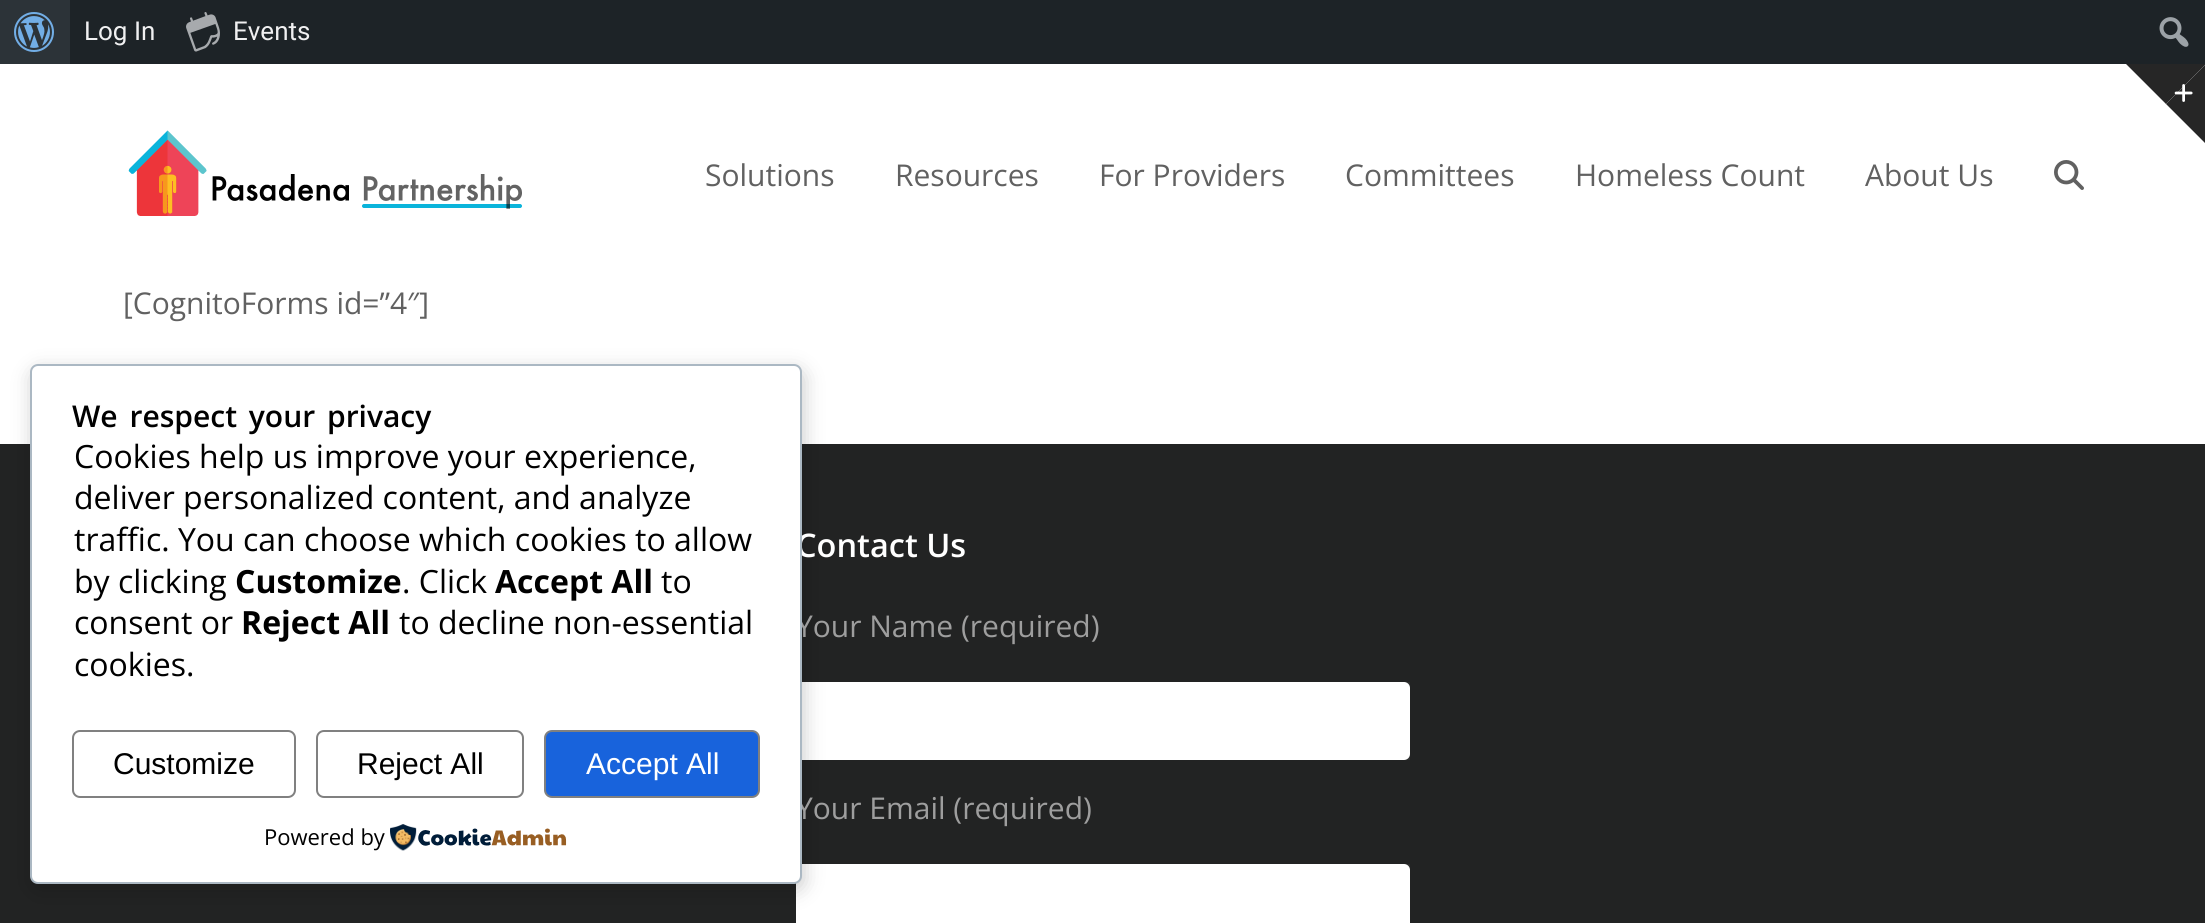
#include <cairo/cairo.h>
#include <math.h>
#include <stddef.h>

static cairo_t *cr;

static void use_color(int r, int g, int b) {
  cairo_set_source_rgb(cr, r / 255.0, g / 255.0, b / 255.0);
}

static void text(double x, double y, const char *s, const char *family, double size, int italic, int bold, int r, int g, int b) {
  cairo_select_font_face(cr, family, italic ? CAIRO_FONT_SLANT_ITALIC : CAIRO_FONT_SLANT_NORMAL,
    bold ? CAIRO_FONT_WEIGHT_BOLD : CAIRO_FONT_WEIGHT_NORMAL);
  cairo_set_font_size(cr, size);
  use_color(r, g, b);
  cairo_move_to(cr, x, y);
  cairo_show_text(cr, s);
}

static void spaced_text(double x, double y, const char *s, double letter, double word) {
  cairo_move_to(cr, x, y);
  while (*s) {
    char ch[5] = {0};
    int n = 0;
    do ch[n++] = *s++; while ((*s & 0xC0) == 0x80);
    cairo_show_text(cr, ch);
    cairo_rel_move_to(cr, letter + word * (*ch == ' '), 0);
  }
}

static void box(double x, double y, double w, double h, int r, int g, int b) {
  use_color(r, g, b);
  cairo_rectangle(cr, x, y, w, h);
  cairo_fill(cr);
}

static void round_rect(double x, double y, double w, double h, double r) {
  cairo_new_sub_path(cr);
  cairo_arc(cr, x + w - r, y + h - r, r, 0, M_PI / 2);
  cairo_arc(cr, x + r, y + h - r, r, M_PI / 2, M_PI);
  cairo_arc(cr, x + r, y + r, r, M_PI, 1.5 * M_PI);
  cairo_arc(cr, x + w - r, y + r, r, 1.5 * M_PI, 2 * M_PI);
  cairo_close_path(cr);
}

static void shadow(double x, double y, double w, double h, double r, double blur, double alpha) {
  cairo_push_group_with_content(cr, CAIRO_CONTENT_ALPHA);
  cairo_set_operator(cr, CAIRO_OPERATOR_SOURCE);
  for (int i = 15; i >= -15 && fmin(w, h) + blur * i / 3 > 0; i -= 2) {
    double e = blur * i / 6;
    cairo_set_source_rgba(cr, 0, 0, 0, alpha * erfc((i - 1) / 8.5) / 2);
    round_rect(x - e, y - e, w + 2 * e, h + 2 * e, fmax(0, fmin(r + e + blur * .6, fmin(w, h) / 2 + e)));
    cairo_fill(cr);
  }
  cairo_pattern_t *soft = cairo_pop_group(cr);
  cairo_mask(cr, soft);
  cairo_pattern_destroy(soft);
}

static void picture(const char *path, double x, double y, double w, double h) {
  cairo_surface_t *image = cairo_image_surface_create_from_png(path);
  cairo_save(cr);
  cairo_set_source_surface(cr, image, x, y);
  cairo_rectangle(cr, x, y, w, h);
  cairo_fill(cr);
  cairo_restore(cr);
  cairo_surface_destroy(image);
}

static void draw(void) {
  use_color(255, 255, 255);
  cairo_paint(cr);
  box(70, 0, 2135, 64, 29, 35, 39);
  box(0, 0, 70, 64, 44, 51, 56);
  picture("img_01.png", 14, 12, 40, 40);
  picture("img_02.png", 186, 12, 34, 40);
  picture("img_03.png", 2159, 17, 30, 30);
  use_color(38, 38, 38);
  cairo_new_path(cr);
  cairo_move_to(cr, 2126, 64);
  cairo_line_to(cr, 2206, 64);
  cairo_line_to(cr, 2166, 104);
  cairo_close_path(cr);
  cairo_fill(cr);
  cairo_new_path(cr);
  cairo_move_to(cr, 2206, 64);
  cairo_line_to(cr, 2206, 144);
  cairo_line_to(cr, 2166, 104);
  cairo_close_path(cr);
  cairo_fill(cr);
  picture("img_04.png", 2174, 84, 19, 18);
  picture("img_05.png", 128, 130, 394, 86);
  picture("img_06.png", 2054, 160, 30, 30);
  box(0, 444, 2205, 479, 34, 35, 35);
  use_color(255, 255, 255);
  round_rect(796, 682, 614, 78, 6);
  cairo_fill(cr);
  cairo_rectangle(cr, 797, 683, 612, 76);
  cairo_set_source_rgba(cr, 1, 1, 1, 0.06);
  cairo_stroke(cr);
  use_color(255, 255, 255);
  round_rect(796, 864, 614, 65, 6);
  cairo_fill(cr);
  cairo_rectangle(cr, 797, 865, 612, 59);
  cairo_set_source_rgba(cr, 1, 1, 1, 0.06);
  cairo_stroke(cr);
  use_color(0, 0, 0);
  shadow(32, 370, 772, 520, 8, 10, 0.2);
  text(84, 40, "Log In", "Roboto", 26, 0, 0, 240, 240, 241);
  text(233, 40, "Events", "Roboto", 26, 0, 0, 240, 240, 241);
  text(705, 186, "Solutions", "Open Sans", 30, 0, 0, 97, 97, 97);
  text(895, 186, "Resources", "Open Sans", 30, 0, 0, 97, 97, 97);
  text(1099, 186, "For Providers", "Open Sans", 30, 0, 0, 97, 97, 97);
  text(1345, 186, "Committees", "Open Sans", 30, 0, 0, 97, 97, 97);
  text(1575, 186, "Homeless Count", "Open Sans", 30, 0, 0, 97, 97, 97);
  text(1865, 186, "About Us", "Open Sans", 30, 0, 0, 97, 97, 97);
  text(123, 314, "[CognitoForms id=”4″]", "Open Sans", 30, 0, 0, 97, 97, 97);
  text(796, 557, "Contact Us", "Open Sans SemiBold", 32.5, 0, 0, 255, 255, 255);
  text(796, 637, "Your Name (required)", "Open Sans", 30, 0, 0, 158, 158, 158);
  text(796, 819, "Your Email (required)", "Open Sans", 30, 0, 0, 158, 158, 158);
  use_color(255, 255, 255);
  round_rect(31, 365, 770, 518, 7);
  cairo_fill_preserve(cr);
  use_color(171, 184, 195);
  cairo_stroke(cr);
  cairo_select_font_face(cr, "Open Sans SemiBold", CAIRO_FONT_SLANT_NORMAL, CAIRO_FONT_WEIGHT_NORMAL);
  use_color(0, 0, 0);
  spaced_text(72, 427, "We respect your privacy", 0, 4);
  text(74, 468, "Cookies help us improve your experience,", "Open Sans", 32, 0, 0, 0, 0, 0);
  text(74, 509, "deliver personalized content, and analyze", "Open Sans", 32, 0, 0, 0, 0, 0);
  text(74, 551, "traffic. You can choose which cookies to allow", "Open Sans", 32, 0, 0, 0, 0, 0);
  text(74, 593, "by clicking", "Open Sans", 32, 0, 0, 0, 0, 0);
  text(235, 593, "Customize", "Open Sans", 32, 0, 1, 0, 0, 0);
  text(402, 593, ". Click", "Open Sans", 32, 0, 0, 0, 0, 0);
  text(495, 593, "Accept All", "Open Sans", 32, 0, 1, 0, 0, 0);
  text(661, 593, "to", "Open Sans", 32, 0, 0, 0, 0, 0);
  text(74, 634, "consent or", "Open Sans", 32, 0, 0, 0, 0, 0);
  text(241, 634, "Reject All", "Open Sans", 32, 0, 1, 0, 0, 0);
  text(399, 634, "to decline non-essential", "Open Sans", 32, 0, 0, 0, 0, 0);
  text(74, 676, "cookies.", "Open Sans", 32, 0, 0, 0, 0, 0);
  round_rect(73, 731, 222, 66, 7);
  use_color(128, 128, 128);
  cairo_stroke(cr);
  text(113, 774, "Customize", "Liberation Sans", 30, 0, 0, 0, 0, 0);
  round_rect(317, 731, 206, 66, 7);
  use_color(128, 128, 128);
  cairo_stroke(cr);
  text(357, 774, "Reject All", "Liberation Sans", 30, 0, 0, 0, 0, 0);
  use_color(24, 99, 220);
  round_rect(545, 731, 214, 66, 7);
  cairo_fill_preserve(cr);
  use_color(128, 128, 128);
  cairo_stroke(cr);
  text(586, 774, "Accept All", "Liberation Sans", 30, 0, 0, 255, 255, 255);
  text(264, 845, "Powered by", "Open Sans", 22, 0, 0, 0, 0, 0);
  picture("img_07.png", 390, 824, 177, 27);
}

int main(void) {
  cairo_surface_t *surface = cairo_image_surface_create(CAIRO_FORMAT_RGB24, 2205, 923);
  cr = cairo_create(surface);
  cairo_font_options_t *options = cairo_font_options_create();
  cairo_font_options_set_hint_metrics(options, CAIRO_HINT_METRICS_OFF);
  cairo_font_options_set_hint_style(options, CAIRO_HINT_STYLE_NONE);
  cairo_set_font_options(cr, options);
  cairo_set_miter_limit(cr, 4);
  draw();
  cairo_surface_write_to_png(surface, "out.png");
  cairo_font_options_destroy(options);
  cairo_destroy(cr);
  cairo_surface_destroy(surface);
  return 0;
}
